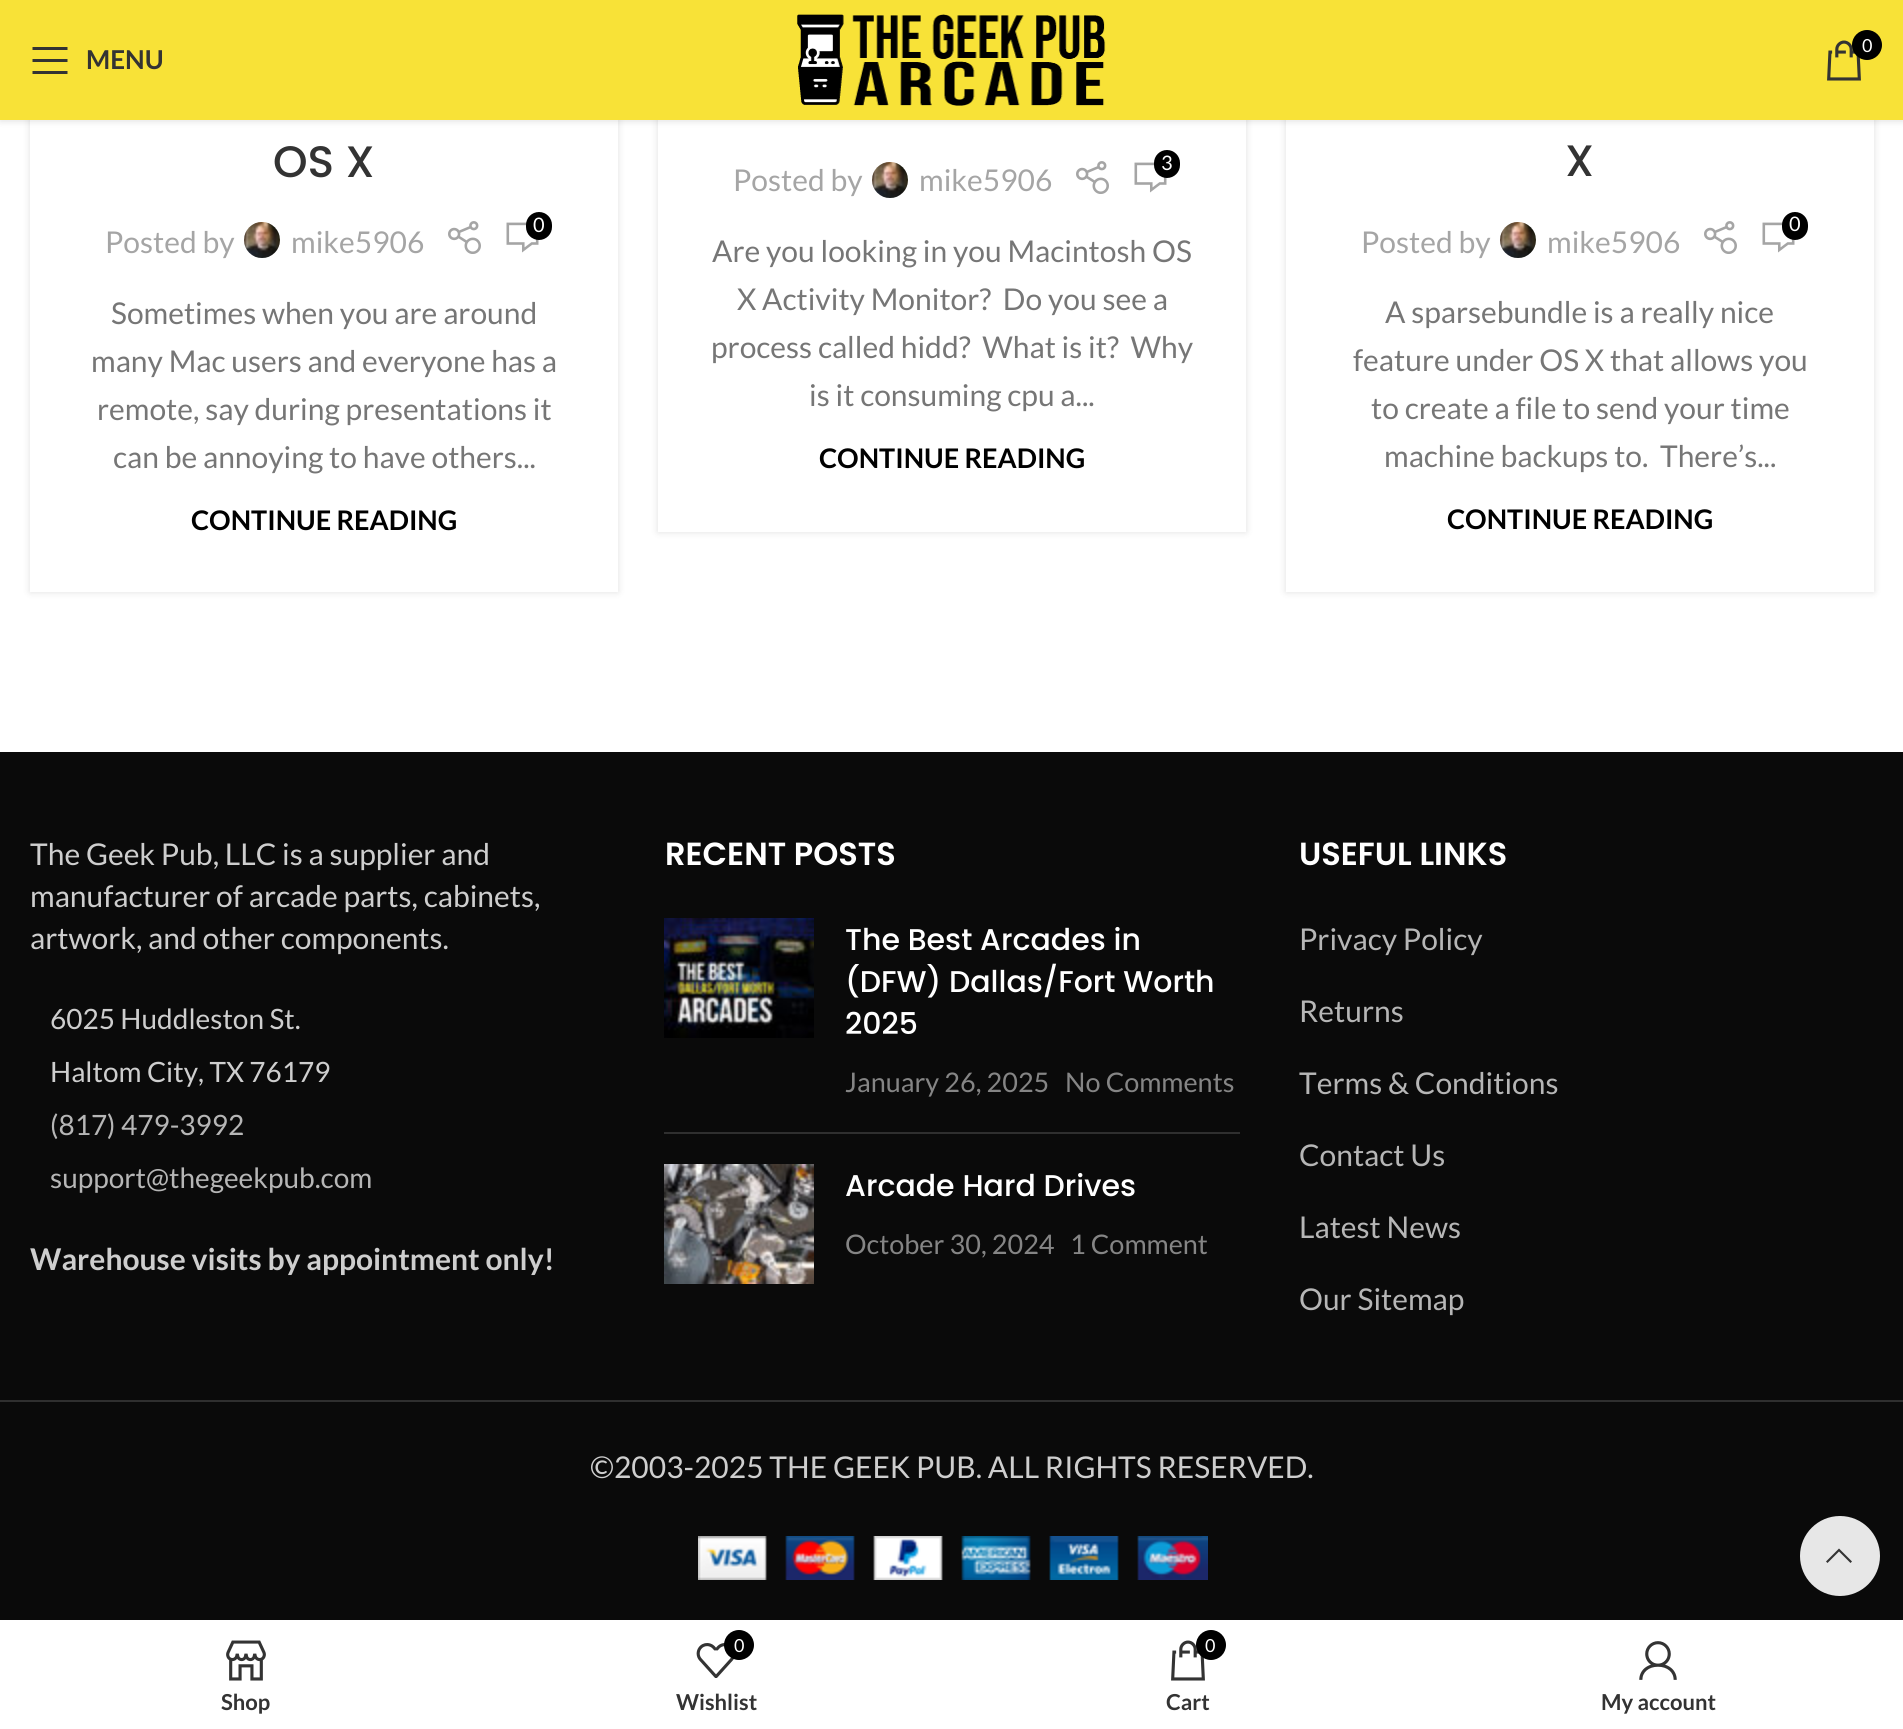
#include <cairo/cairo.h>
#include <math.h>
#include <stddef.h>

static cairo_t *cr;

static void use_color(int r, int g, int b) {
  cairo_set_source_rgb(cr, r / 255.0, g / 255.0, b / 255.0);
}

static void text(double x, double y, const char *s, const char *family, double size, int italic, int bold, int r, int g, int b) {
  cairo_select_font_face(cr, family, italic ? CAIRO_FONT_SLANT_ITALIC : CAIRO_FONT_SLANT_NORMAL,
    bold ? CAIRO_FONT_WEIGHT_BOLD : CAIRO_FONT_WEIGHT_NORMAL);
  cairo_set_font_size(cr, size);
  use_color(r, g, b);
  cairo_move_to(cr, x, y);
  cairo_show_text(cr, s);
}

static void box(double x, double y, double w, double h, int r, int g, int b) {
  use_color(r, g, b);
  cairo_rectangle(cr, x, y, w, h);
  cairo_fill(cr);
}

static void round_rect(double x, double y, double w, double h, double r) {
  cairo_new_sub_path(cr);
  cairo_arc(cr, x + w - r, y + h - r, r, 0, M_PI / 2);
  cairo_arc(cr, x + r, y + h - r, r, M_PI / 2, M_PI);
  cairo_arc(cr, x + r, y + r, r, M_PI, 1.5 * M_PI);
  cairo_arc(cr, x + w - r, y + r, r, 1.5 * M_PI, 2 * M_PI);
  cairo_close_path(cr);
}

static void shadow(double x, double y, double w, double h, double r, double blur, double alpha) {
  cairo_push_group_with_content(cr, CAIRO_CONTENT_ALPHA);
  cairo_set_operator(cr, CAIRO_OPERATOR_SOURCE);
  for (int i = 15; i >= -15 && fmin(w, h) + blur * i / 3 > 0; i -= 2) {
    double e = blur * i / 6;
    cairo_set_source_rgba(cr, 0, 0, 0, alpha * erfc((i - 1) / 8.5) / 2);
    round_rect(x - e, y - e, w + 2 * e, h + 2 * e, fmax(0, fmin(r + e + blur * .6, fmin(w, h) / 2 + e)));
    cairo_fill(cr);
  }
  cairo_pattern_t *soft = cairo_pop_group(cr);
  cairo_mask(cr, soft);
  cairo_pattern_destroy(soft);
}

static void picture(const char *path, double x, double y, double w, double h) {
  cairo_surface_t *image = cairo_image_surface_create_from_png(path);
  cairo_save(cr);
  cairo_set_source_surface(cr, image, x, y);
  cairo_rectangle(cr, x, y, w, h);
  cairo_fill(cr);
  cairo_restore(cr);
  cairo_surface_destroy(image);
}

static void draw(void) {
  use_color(255, 255, 255);
  cairo_paint(cr);
  use_color(0, 0, 0);
  shadow(0, 2, 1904, 120, 0, 3, 0.1);
  cairo_save(cr);
  cairo_set_fill_rule(cr, CAIRO_FILL_RULE_EVEN_ODD);
  cairo_new_path(cr);
  cairo_move_to(cr, 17, 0);
  cairo_line_to(cr, 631, 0);
  cairo_line_to(cr, 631, 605);
  cairo_line_to(cr, 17, 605);
  cairo_close_path(cr);
  cairo_move_to(cr, 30, -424);
  cairo_line_to(cr, 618, -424);
  cairo_line_to(cr, 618, 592);
  cairo_line_to(cr, 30, 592);
  cairo_close_path(cr);
  cairo_clip(cr);
  shadow(30, -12, 588, 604, 0, 4, 0.12);
  cairo_restore(cr);
  cairo_save(cr);
  cairo_set_fill_rule(cr, CAIRO_FILL_RULE_EVEN_ODD);
  cairo_new_path(cr);
  cairo_move_to(cr, 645, 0);
  cairo_line_to(cr, 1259, 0);
  cairo_line_to(cr, 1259, 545);
  cairo_line_to(cr, 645, 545);
  cairo_close_path(cr);
  cairo_move_to(cr, 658, -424);
  cairo_line_to(cr, 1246, -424);
  cairo_line_to(cr, 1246, 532);
  cairo_line_to(cr, 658, 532);
  cairo_close_path(cr);
  cairo_clip(cr);
  shadow(658, -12, 588, 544, 0, 4, 0.12);
  cairo_restore(cr);
  cairo_save(cr);
  cairo_set_fill_rule(cr, CAIRO_FILL_RULE_EVEN_ODD);
  cairo_new_path(cr);
  cairo_move_to(cr, 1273, 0);
  cairo_line_to(cr, 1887, 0);
  cairo_line_to(cr, 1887, 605);
  cairo_line_to(cr, 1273, 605);
  cairo_close_path(cr);
  cairo_move_to(cr, 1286, -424);
  cairo_line_to(cr, 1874, -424);
  cairo_line_to(cr, 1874, 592);
  cairo_line_to(cr, 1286, 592);
  cairo_close_path(cr);
  cairo_clip(cr);
  shadow(1286, -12, 588, 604, 0, 4, 0.12);
  cairo_restore(cr);
  box(0, 0, 1903, 120, 248, 226, 55);
  picture("img_01.png", 797, 14, 309, 92);
  picture("img_02.png", 1827, 40, 34, 41);
  use_color(0, 0, 0);
  cairo_arc(cr, 1867, 45, 15, 0, 2 * M_PI);
  cairo_fill(cr);
  use_color(51, 51, 51);
  cairo_new_path(cr);
  cairo_move_to(cr, 32.5, 50);
  cairo_line_to(cr, 67.5, 50);
  cairo_line_to(cr, 67.5, 47);
  cairo_line_to(cr, 32.5, 47);
  cairo_close_path(cr);
  cairo_move_to(cr, 32.5, 62);
  cairo_line_to(cr, 67.5, 62);
  cairo_line_to(cr, 67.5, 59);
  cairo_line_to(cr, 32.5, 59);
  cairo_close_path(cr);
  cairo_move_to(cr, 32.5, 74);
  cairo_line_to(cr, 67.5, 74);
  cairo_line_to(cr, 67.5, 71);
  cairo_line_to(cr, 32.5, 71);
  cairo_close_path(cr);
  cairo_fill(cr);
  picture("img_03.png", 244, 222, 36, 36);
  picture("img_04.png", 448, 221, 33, 33);
  picture("img_05.png", 506, 222, 33, 31);
  use_color(0, 0, 0);
  round_rect(526, 212, 26, 28, 13);
  cairo_fill(cr);
  picture("img_06.png", 872, 162, 36, 36);
  picture("img_04.png", 1076, 161, 33, 33);
  picture("img_05.png", 1134, 162, 33, 31);
  round_rect(1154, 150, 26, 28, 13);
  cairo_fill(cr);
  picture("img_07.png", 1500, 222, 36, 36);
  picture("img_04.png", 1704, 221, 33, 33);
  picture("img_05.png", 1762, 222, 33, 31);
  round_rect(1782, 212, 26, 28, 13);
  cairo_fill(cr);
  box(0, 752, 1903, 868, 10, 10, 10);
  box(664, 1132, 576, 2, 47, 47, 47);
  picture("img_08.png", 664, 918, 150, 120);
  picture("img_09.png", 664, 1164, 150, 120);
  box(0, 1400, 1903, 2, 47, 47, 47);
  picture("img_10.png", 698, 1536, 510, 44);
  use_color(231, 231, 231);
  cairo_arc(cr, 1840, 1556, 40, 0, 2 * M_PI);
  cairo_fill(cr);
  use_color(51, 51, 51);
  cairo_new_path(cr);
  cairo_move_to(cr, 1850.5, 1563);
  cairo_line_to(cr, 1852, 1561.5);
  cairo_line_to(cr, 1839, 1548.5);
  cairo_line_to(cr, 1826, 1561.5);
  cairo_line_to(cr, 1827.5, 1563);
  cairo_line_to(cr, 1839, 1551.5);
  cairo_close_path(cr);
  cairo_fill(cr);
  picture("img_11.png", 226, 1640, 40, 41);
  picture("img_12.png", 696, 1643, 38, 35);
  use_color(0, 0, 0);
  cairo_arc(cr, 739, 1645, 15, 0, 2 * M_PI);
  cairo_fill(cr);
  picture("img_13.png", 1171, 1640, 34, 41);
  cairo_arc(cr, 1211, 1645, 15, 0, 2 * M_PI);
  cairo_fill(cr);
  picture("img_14.png", 1639, 1641, 38, 39);
  text(1862, 52, "0", "Lato", 18, 0, 0, 255, 255, 255);
  text(86, 69, "MENU", "Lato", 26, 0, 1, 51, 51, 51);
  text(273, 177, "OS X", "Poppins Medium", 44, 0, 0, 51, 51, 51);
  text(105, 253, "Posted by", "Lato", 30, 0, 0, 165, 165, 165);
  text(291, 253, "mike5906", "Lato", 30, 0, 0, 165, 165, 165);
  text(533, 232, "0", "Lato", 20, 0, 0, 255, 255, 255);
  text(111, 324, "Sometimes when you are around", "Lato", 30, 0, 0, 118, 118, 118);
  text(91, 372, "many Mac users and everyone has a", "Lato", 30, 0, 0, 118, 118, 118);
  text(97, 420, "remote, say during presentations it", "Lato", 30, 0, 0, 118, 118, 118);
  text(113, 468, "can be annoying to have others...", "Lato", 30, 0, 0, 118, 118, 118);
  text(191, 530, "CONTINUE READING", "Lato", 27, 0, 1, 0, 0, 0);
  text(733, 191, "Posted by", "Lato", 30, 0, 0, 165, 165, 165);
  text(919, 191, "mike5906", "Lato", 30, 0, 0, 165, 165, 165);
  text(1161, 170, "3", "Lato", 20, 0, 0, 255, 255, 255);
  text(712, 262, "Are you looking in you Macintosh OS", "Lato", 30, 0, 0, 118, 118, 118);
  text(737, 310, "X Activity Monitor?  Do you see a", "Lato", 30, 0, 0, 118, 118, 118);
  text(711, 358, "process called hidd?  What is it?  Why", "Lato", 30, 0, 0, 118, 118, 118);
  text(809, 406, "is it consuming cpu a...", "Lato", 30, 0, 0, 118, 118, 118);
  text(819, 468, "CONTINUE READING", "Lato", 27, 0, 1, 0, 0, 0);
  text(1565, 176, "X", "Poppins Medium", 44, 0, 0, 51, 51, 51);
  text(1361, 253, "Posted by", "Lato", 30, 0, 0, 165, 165, 165);
  text(1547, 253, "mike5906", "Lato", 30, 0, 0, 165, 165, 165);
  text(1789, 231, "0", "Lato", 20, 0, 0, 255, 255, 255);
  text(1385, 323, "A sparsebundle is a really nice", "Lato", 30, 0, 0, 118, 118, 118);
  text(1353, 371, "feature under OS X that allows you", "Lato", 30, 0, 0, 118, 118, 118);
  text(1371, 419, "to create a file to send your time", "Lato", 30, 0, 0, 118, 118, 118);
  text(1384, 467, "machine backups to.  There’s...", "Lato", 30, 0, 0, 118, 118, 118);
  text(1447, 529, "CONTINUE READING", "Lato", 27, 0, 1, 0, 0, 0);
  text(30, 865, "The Geek Pub, LLC is a supplier and", "Lato", 30, 0, 0, 206, 206, 206);
  text(30, 907, "manufacturer of arcade parts, cabinets,", "Lato", 30, 0, 0, 206, 206, 206);
  text(30, 949, "artwork, and other components.", "Lato", 30, 0, 0, 206, 206, 206);
  text(50, 1029, "6025 Huddleston St.", "Lato", 28, 0, 0, 206, 206, 206);
  text(50, 1082, "Haltom City, TX 76179", "Lato", 28, 0, 0, 206, 206, 206);
  text(50, 1135, "(817) 479-3992", "Lato", 28, 0, 0, 182, 182, 182);
  text(50, 1188, "support@thegeekpub.com", "Lato", 28, 0, 0, 182, 182, 182);
  text(30, 1270, "Warehouse visits by appointment only!", "Lato", 30, 0, 1, 206, 206, 206);
  text(665, 865, "RECENT POSTS", "Poppins SemiBold", 32, 0, 0, 255, 255, 255);
  text(845, 950, "The Best Arcades in", "Poppins Medium", 30, 0, 0, 255, 255, 255);
  text(845, 992, "(DFW) Dallas/Fort Worth", "Poppins Medium", 30, 0, 0, 255, 255, 255);
  text(845, 1034, "2025", "Poppins Medium", 30, 0, 0, 255, 255, 255);
  text(845, 1092, "January 26, 2025", "Lato", 27, 0, 0, 133, 133, 133);
  text(1065, 1092, "No Comments", "Lato", 27, 0, 0, 133, 133, 133);
  text(845, 1196, "Arcade Hard Drives", "Poppins Medium", 30, 0, 0, 255, 255, 255);
  text(845, 1254, "October 30, 2024", "Lato", 27, 0, 0, 133, 133, 133);
  text(1070, 1254, "1 Comment", "Lato", 27, 0, 0, 133, 133, 133);
  text(1299, 865, "USEFUL LINKS", "Poppins SemiBold", 32, 0, 0, 255, 255, 255);
  text(1299, 950, "Privacy Policy", "Lato", 30, 0, 0, 182, 182, 182);
  text(1299, 1022, "Returns", "Lato", 30, 0, 0, 182, 182, 182);
  text(1299, 1094, "Terms & Conditions", "Lato", 30, 0, 0, 182, 182, 182);
  text(1299, 1166, "Contact Us", "Lato", 30, 0, 0, 182, 182, 182);
  text(1299, 1238, "Latest News", "Lato", 30, 0, 0, 182, 182, 182);
  text(1299, 1310, "Our Sitemap", "Lato", 30, 0, 0, 182, 182, 182);
  text(590, 1478, "©2003-2025 THE GEEK PUB. ALL RIGHTS RESERVED.", "Lato", 30, 0, 0, 206, 206, 206);
  text(221, 1710, "Shop", "Lato", 22, 0, 1, 51, 51, 51);
  text(734, 1652, "0", "Lato", 18, 0, 0, 255, 255, 255);
  text(676, 1710, "Wishlist", "Lato", 22, 0, 1, 51, 51, 51);
  text(1205, 1652, "0", "Lato", 18, 0, 0, 255, 255, 255);
  text(1166, 1710, "Cart", "Lato", 22, 0, 1, 51, 51, 51);
  text(1601, 1710, "My account", "Lato", 22, 0, 1, 51, 51, 51);
}

int main(void) {
  cairo_surface_t *surface = cairo_image_surface_create(CAIRO_FORMAT_RGB24, 1903, 1729);
  cr = cairo_create(surface);
  cairo_font_options_t *options = cairo_font_options_create();
  cairo_font_options_set_hint_metrics(options, CAIRO_HINT_METRICS_OFF);
  cairo_font_options_set_hint_style(options, CAIRO_HINT_STYLE_NONE);
  cairo_set_font_options(cr, options);
  cairo_set_miter_limit(cr, 4);
  draw();
  cairo_surface_write_to_png(surface, "out.png");
  cairo_font_options_destroy(options);
  cairo_destroy(cr);
  cairo_surface_destroy(surface);
  return 0;
}
